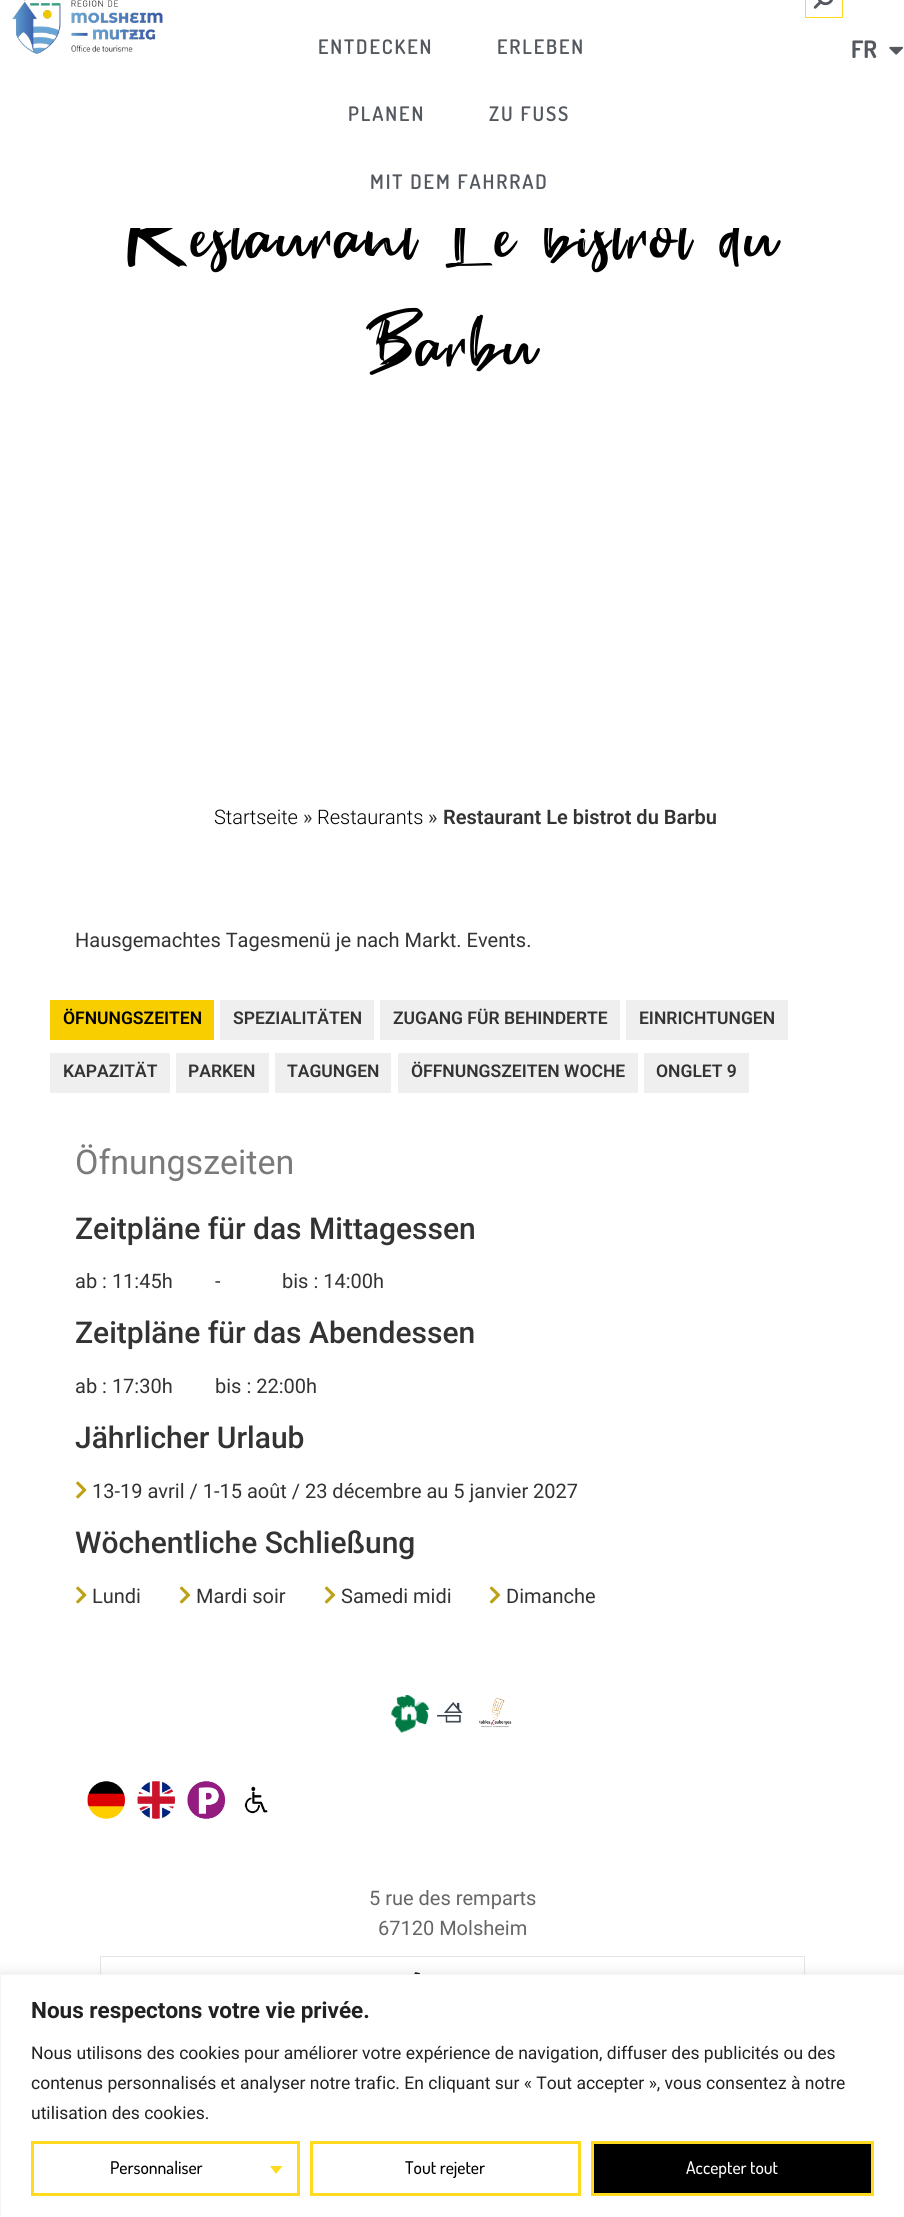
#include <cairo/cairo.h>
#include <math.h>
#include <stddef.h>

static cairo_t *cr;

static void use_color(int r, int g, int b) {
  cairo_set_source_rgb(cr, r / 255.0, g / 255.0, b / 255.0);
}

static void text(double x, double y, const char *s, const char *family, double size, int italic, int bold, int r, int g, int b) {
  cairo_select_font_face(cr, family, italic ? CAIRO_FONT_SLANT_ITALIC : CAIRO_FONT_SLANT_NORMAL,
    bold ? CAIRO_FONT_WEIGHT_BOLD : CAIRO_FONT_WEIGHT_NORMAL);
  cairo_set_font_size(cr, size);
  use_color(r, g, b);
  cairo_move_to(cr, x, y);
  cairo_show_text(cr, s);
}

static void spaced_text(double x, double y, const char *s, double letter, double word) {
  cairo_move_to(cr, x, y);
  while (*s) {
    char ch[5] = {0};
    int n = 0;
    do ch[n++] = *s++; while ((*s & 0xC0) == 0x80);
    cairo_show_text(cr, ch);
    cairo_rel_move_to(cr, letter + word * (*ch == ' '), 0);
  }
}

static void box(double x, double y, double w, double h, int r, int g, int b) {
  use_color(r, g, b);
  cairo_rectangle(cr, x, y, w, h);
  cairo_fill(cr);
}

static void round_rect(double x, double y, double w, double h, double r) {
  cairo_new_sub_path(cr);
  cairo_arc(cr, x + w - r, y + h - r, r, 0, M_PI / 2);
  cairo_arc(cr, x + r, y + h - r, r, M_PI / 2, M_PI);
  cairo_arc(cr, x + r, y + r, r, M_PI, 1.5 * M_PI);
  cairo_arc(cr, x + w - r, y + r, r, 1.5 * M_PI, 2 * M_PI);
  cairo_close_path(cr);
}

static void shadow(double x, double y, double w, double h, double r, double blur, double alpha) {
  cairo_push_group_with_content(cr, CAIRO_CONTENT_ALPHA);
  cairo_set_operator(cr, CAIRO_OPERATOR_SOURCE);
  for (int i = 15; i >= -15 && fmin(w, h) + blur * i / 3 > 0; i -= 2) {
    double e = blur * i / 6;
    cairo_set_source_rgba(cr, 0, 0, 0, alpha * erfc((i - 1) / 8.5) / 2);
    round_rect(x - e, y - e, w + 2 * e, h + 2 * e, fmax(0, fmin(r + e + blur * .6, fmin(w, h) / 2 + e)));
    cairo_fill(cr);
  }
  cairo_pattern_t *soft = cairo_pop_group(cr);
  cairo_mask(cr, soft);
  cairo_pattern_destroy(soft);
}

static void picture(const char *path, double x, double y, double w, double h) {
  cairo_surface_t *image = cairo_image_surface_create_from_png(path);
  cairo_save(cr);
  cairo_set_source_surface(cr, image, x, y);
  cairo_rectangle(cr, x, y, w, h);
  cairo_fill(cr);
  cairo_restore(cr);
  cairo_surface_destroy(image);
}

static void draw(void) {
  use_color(255, 255, 255);
  cairo_paint(cr);
  picture("img_01.png", 12, 0, 151, 54);
  cairo_rectangle(cr, 805.5, -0.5, 37, 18);
  use_color(255, 218, 32);
  cairo_set_line_width(cr, 1);
  cairo_stroke(cr);
  picture("img_02.png", 813, 0, 20, 9);
  picture("img_03.png", 889, 46, 14, 9);
  box(50, 1000, 164, 40, 248, 206, 0);
  box(220, 1000, 154, 40, 239, 239, 239);
  box(380, 1000, 240, 40, 239, 239, 239);
  box(626, 1000, 162, 40, 239, 239, 239);
  box(50, 1053, 120, 40, 239, 239, 239);
  box(176, 1053, 93, 40, 239, 239, 239);
  box(275, 1053, 116, 40, 239, 239, 239);
  box(398, 1053, 240, 40, 239, 239, 239);
  box(644, 1053, 105, 40, 239, 239, 239);
  picture("img_04.png", 76, 1481, 11, 18);
  picture("img_04.png", 76, 1586, 11, 18);
  picture("img_05.png", 179, 1586, 12, 18);
  picture("img_05.png", 324, 1586, 12, 18);
  picture("img_05.png", 489, 1586, 12, 18);
  picture("img_06.png", 391, 1695, 38, 38);
  picture("img_07.png", 437, 1702, 26, 21);
  picture("img_08.png", 479, 1698, 33, 30);
  picture("img_09.png", 87, 1781, 38, 38);
  picture("img_10.png", 137, 1781, 38, 38);
  picture("img_11.png", 187, 1781, 38, 38);
  picture("img_12.png", 244, 1786, 24, 28);
  cairo_rectangle(cr, 100.5, 1956.5, 704, 49);
  use_color(229, 229, 229);
  cairo_stroke(cr);
  picture("img_13.png", 414, 1972, 6, 2);
  use_color(172, 171, 171);
  shadow(0, 1973, 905, 243, 0, 6, 0.3);
  use_color(255, 255, 255);
  cairo_rectangle(cr, 0.5, 1974.5, 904, 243);
  cairo_fill_preserve(cr);
  use_color(244, 244, 244);
  cairo_stroke(cr);
  cairo_rectangle(cr, 32.5, 2142.5, 266, 52);
  use_color(255, 218, 32);
  cairo_set_line_width(cr, 3);
  cairo_stroke(cr);
  cairo_new_path(cr);
  cairo_move_to(cr, 270, 2166);
  cairo_line_to(cr, 282.5, 2166);
  cairo_line_to(cr, 276, 2174);
  cairo_close_path(cr);
  cairo_fill(cr);
  cairo_rectangle(cr, 311.5, 2142.5, 268, 52);
  cairo_stroke(cr);
  use_color(0, 0, 0);
  cairo_rectangle(cr, 592.5, 2142.5, 280, 52);
  cairo_fill_preserve(cr);
  use_color(255, 218, 32);
  cairo_stroke(cr);
  cairo_select_font_face(cr, "Dosis SemiBold", CAIRO_FONT_SLANT_NORMAL, CAIRO_FONT_WEIGHT_NORMAL);
  cairo_set_font_size(cr, 20);
  use_color(84, 89, 95);
  spaced_text(318, 54, "ENTDECKEN", 1.9, 0);
  spaced_text(497, 54, "ERLEBEN", 1.9, 0);
  spaced_text(348, 121, "PLANEN", 1.9, 0);
  spaced_text(489, 121, "ZU FUSS", 1.9, 0);
  spaced_text(370, 189, "MIT DEM FAHRRAD", 1.9, 0);
  text(851, 58, "FR", "Dosis", 24, 0, 1, 84, 89, 95);
  cairo_select_font_face(cr, "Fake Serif", CAIRO_FONT_SLANT_NORMAL, CAIRO_FONT_WEIGHT_NORMAL);
  cairo_set_font_size(cr, 90);
  use_color(0, 0, 0);
  spaced_text(125, 268, "Restaurant Le bistrot du", 2.5, 0);
  box(125, 200, 620, 28, 255, 255, 255);
  use_color(0, 0, 0);
  spaced_text(366, 376, "Barbu", 2.5, 0);
  text(214, 824, "Startseite", "Roboto Light", 20, 0, 0, 0, 0, 0);
  text(303, 824, "»", "Roboto", 20, 0, 0, 51, 51, 51);
  text(317, 824, "Restaurants", "Roboto Light", 20, 0, 0, 0, 0, 0);
  text(428, 824, "»", "Roboto", 20, 0, 0, 51, 51, 51);
  text(443, 824, "Restaurant Le bistrot du Barbu", "Roboto SemiBold", 20, 0, 0, 51, 51, 51);
  text(75, 947, "Hausgemachtes Tagesmenü je nach Markt. Events.", "Roboto", 20, 0, 0, 51, 51, 51);
  text(63, 1024, "ÖFNUNGSZEITEN", "Roboto SemiBold", 17.5, 0, 0, 0, 0, 0);
  text(233, 1024, "SPEZIALITÄTEN", "Roboto SemiBold", 17.5, 0, 0, 51, 51, 51);
  text(393, 1024, "ZUGANG FÜR BEHINDERTE", "Roboto SemiBold", 17.5, 0, 0, 51, 51, 51);
  text(639, 1024, "EINRICHTUNGEN", "Roboto SemiBold", 17.5, 0, 0, 51, 51, 51);
  text(63, 1077, "KAPAZITÄT", "Roboto SemiBold", 17.5, 0, 0, 51, 51, 51);
  text(188, 1077, "PARKEN", "Roboto SemiBold", 17.5, 0, 0, 51, 51, 51);
  text(287, 1077, "TAGUNGEN", "Roboto SemiBold", 17.5, 0, 0, 51, 51, 51);
  text(411, 1077, "ÖFFNUNGSZEITEN WOCHE", "Roboto SemiBold", 17.5, 0, 0, 51, 51, 51);
  text(656, 1077, "ONGLET 9", "Roboto SemiBold", 17.5, 0, 0, 51, 51, 51);
  text(75, 1174, "Öfnungszeiten", "Roboto", 34, 0, 0, 122, 122, 122);
  text(75, 1239, "Zeitpläne für das Mittagessen", "Roboto Medium", 30, 0, 0, 51, 51, 51);
  text(75, 1288, "ab : 11:45h", "Roboto", 20, 0, 0, 51, 51, 51);
  text(215, 1288, "-", "Roboto", 20, 0, 0, 51, 51, 51);
  text(282, 1288, "bis : 14:00h", "Roboto", 20, 0, 0, 51, 51, 51);
  text(75, 1343, "Zeitpläne für das Abendessen", "Roboto Medium", 30, 0, 0, 51, 51, 51);
  text(75, 1393, "ab : 17:30h", "Roboto", 20, 0, 0, 51, 51, 51);
  text(215, 1393, "bis : 22:00h", "Roboto", 20, 0, 0, 51, 51, 51);
  text(75, 1448, "Jährlicher Urlaub", "Roboto Medium", 30, 0, 0, 51, 51, 51);
  text(92, 1498, "13-19 avril / 1-15 août / 23 décembre au 5 janvier 2027", "Roboto", 20, 0, 0, 51, 51, 51);
  text(75, 1553, "Wöchentliche Schließung", "Roboto Medium", 30, 0, 0, 51, 51, 51);
  text(92, 1603, "Lundi", "Roboto", 20, 0, 0, 51, 51, 51);
  text(196, 1603, "Mardi soir", "Roboto", 20, 0, 0, 51, 51, 51);
  text(341, 1603, "Samedi midi", "Roboto", 20, 0, 0, 51, 51, 51);
  text(506, 1603, "Dimanche", "Roboto", 20, 0, 0, 51, 51, 51);
  text(369, 1905, "5 rue des remparts", "Roboto", 20, 0, 0, 102, 102, 102);
  text(378, 1935, "67120 Molsheim", "Roboto", 20, 0, 0, 102, 102, 102);
  text(31, 2018, "Nous respectons votre vie privée.", "Roboto", 22.5, 0, 1, 33, 33, 33);
  text(31, 2059, "Nous utilisons des cookies pour améliorer votre expérience de navigation, diffuser des publicités ou des", "Roboto", 17.5, 0, 0, 33, 33, 33);
  text(31, 2089, "contenus personnalisés et analyser notre trafic. En cliquant sur « Tout accepter », vous consentez à notre", "Roboto", 17.5, 0, 0, 33, 33, 33);
  text(31, 2119, "utilisation des cookies.", "Roboto", 17.5, 0, 0, 33, 33, 33);
  text(110, 2174, "Personnaliser", "Dosis Medium", 17.5, 0, 0, 0, 0, 0);
  text(405, 2174, "Tout rejeter", "Dosis Medium", 17.5, 0, 0, 0, 0, 0);
  text(686, 2174, "Accepter tout", "Dosis Medium", 17.5, 0, 0, 255, 255, 255);
}

int main(void) {
  cairo_surface_t *surface = cairo_image_surface_create(CAIRO_FORMAT_RGB24, 904, 2217);
  cr = cairo_create(surface);
  cairo_font_options_t *options = cairo_font_options_create();
  cairo_font_options_set_hint_metrics(options, CAIRO_HINT_METRICS_OFF);
  cairo_font_options_set_hint_style(options, CAIRO_HINT_STYLE_NONE);
  cairo_set_font_options(cr, options);
  cairo_set_miter_limit(cr, 4);
  draw();
  cairo_surface_write_to_png(surface, "out.png");
  cairo_font_options_destroy(options);
  cairo_destroy(cr);
  cairo_surface_destroy(surface);
  return 0;
}
